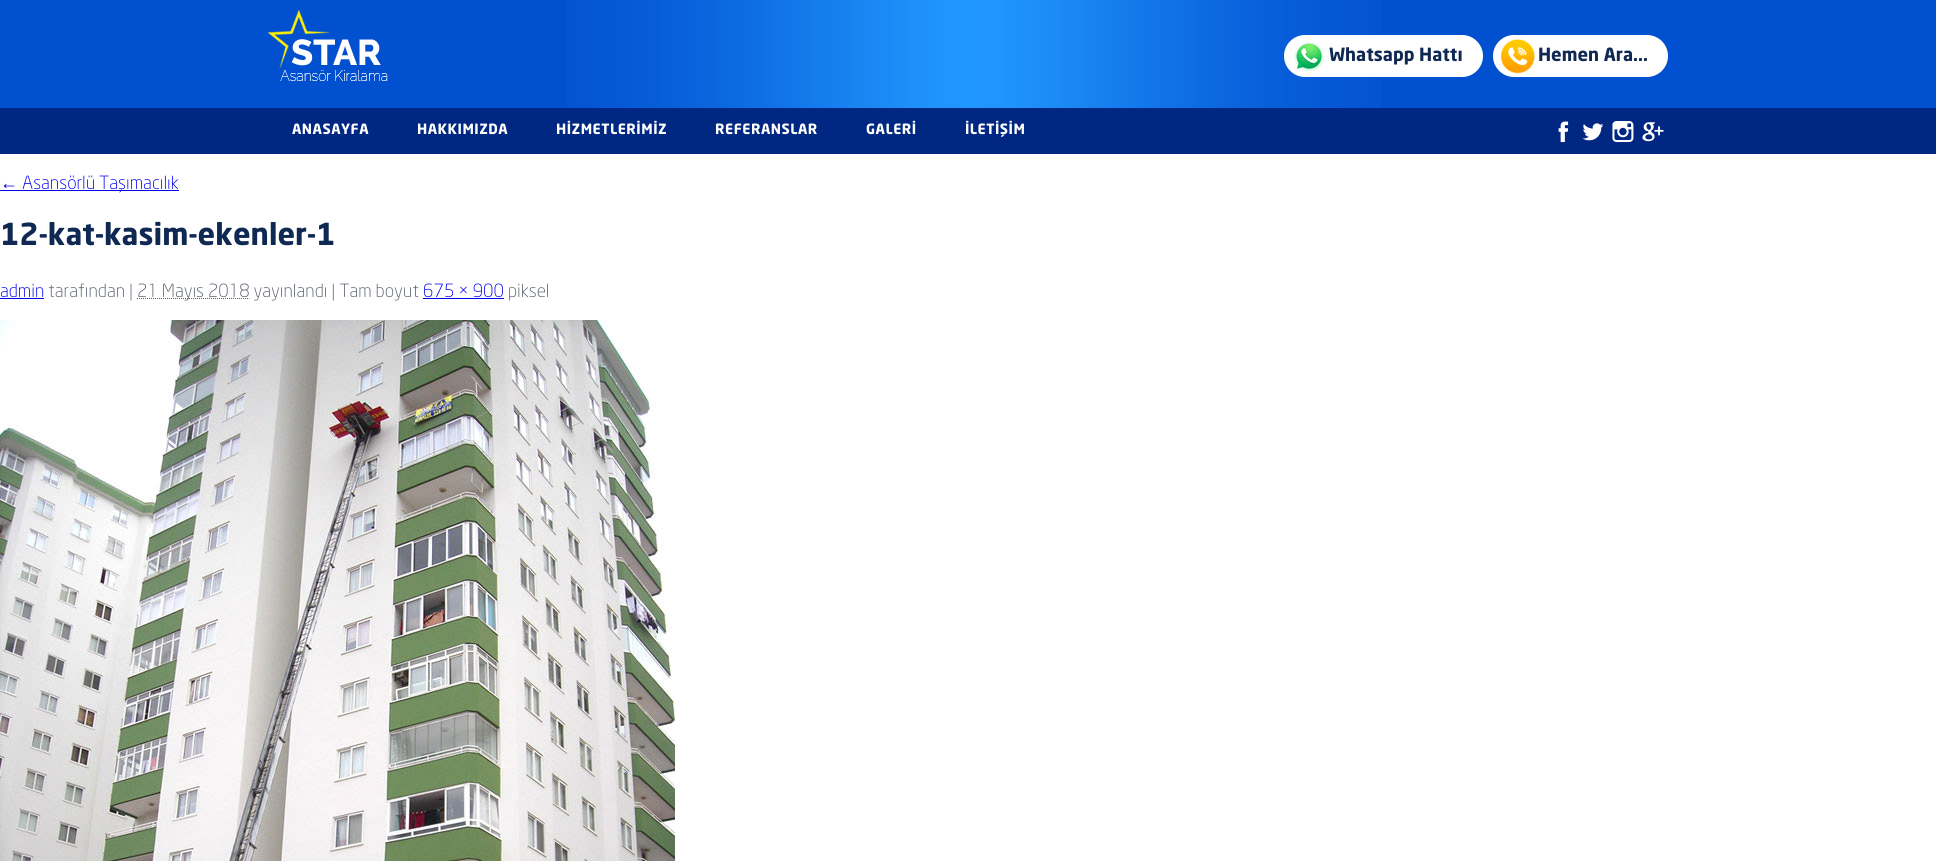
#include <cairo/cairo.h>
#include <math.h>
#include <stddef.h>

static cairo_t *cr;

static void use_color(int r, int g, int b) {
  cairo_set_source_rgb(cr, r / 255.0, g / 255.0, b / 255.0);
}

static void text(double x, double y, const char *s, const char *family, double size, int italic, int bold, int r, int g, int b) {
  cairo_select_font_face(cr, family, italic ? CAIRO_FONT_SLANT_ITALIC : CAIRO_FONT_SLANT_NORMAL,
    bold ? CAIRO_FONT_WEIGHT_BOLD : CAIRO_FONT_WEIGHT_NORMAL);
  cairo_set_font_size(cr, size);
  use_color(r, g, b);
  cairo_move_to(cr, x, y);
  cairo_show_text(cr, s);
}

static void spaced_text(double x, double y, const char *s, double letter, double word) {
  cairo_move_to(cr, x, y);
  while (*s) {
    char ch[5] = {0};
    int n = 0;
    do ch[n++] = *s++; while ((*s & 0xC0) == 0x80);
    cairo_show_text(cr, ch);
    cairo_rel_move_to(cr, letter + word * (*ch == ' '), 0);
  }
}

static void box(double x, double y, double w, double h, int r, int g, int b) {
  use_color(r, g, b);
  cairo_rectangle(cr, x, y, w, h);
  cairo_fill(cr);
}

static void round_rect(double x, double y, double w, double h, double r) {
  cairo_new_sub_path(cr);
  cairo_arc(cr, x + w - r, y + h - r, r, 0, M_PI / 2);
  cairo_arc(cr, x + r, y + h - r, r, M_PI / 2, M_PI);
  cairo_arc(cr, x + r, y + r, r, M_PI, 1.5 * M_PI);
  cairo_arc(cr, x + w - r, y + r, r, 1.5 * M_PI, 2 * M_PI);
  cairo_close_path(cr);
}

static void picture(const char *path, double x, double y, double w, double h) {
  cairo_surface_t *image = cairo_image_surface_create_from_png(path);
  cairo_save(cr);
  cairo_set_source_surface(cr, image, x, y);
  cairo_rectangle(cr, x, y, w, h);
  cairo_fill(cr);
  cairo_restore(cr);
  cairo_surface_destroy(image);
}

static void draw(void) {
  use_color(255, 255, 255);
  cairo_paint(cr);
  box(0, 0, 1936, 108, 1, 80, 208);
  picture("img_01.png", 567, 0, 814, 108);
  picture("img_02.png", 268, 10, 120, 71);
  use_color(255, 255, 255);
  round_rect(1284, 35, 199, 42, 21);
  cairo_fill(cr);
  picture("img_03.png", 1294, 41, 30, 30);
  round_rect(1493, 35, 175, 42, 21);
  cairo_fill(cr);
  picture("img_04.png", 1501, 39, 34, 35);
  box(0, 108, 1936, 46, 0, 39, 129);
  picture("img_05.png", 1558, 121, 11, 22);
  picture("img_06.png", 1582, 123, 22, 18);
  picture("img_07.png", 1612, 121, 22, 22);
  picture("img_08.png", 1642, 122, 22, 20);
  box(0, 190, 179, 1, 0, 0, 238);
  box(0, 298, 44, 1, 0, 0, 238);
  cairo_new_path(cr);
  cairo_move_to(cr, 137, 298.5);
  cairo_line_to(cr, 249.5, 298.5);
  use_color(86, 94, 108);
  cairo_set_line_width(cr, 1);
  cairo_set_dash(cr, (double[]){1, 1}, 2, 0);
  cairo_stroke(cr);
  box(423, 298, 81, 1, 0, 0, 238);
  picture("img_09.png", 0, 320, 675, 541);
  text(1329, 61, "Whatsapp Hattı", "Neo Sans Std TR", 18, 0, 1, 15, 41, 83);
  text(1538, 61, "Hemen Ara...", "Neo Sans Std TR", 18, 0, 1, 15, 41, 83);
  cairo_set_font_size(cr, 14);
  use_color(255, 255, 255);
  spaced_text(292, 134, "ANASAYFA", 0.5, 0);
  spaced_text(417, 134, "HAKKIMIZDA", 0.5, 0);
  spaced_text(556, 134, "HİZMETLERİMİZ", 0.5, 0);
  spaced_text(715, 134, "REFERANSLAR", 0.5, 0);
  spaced_text(866, 134, "GALERİ", 0.5, 0);
  spaced_text(965, 134, "İLETİŞİM", 0.5, 0);
  text(0, 189, "←", "Liberation Sans", 18, 0, 0, 0, 0, 238);
  text(22, 189, "Asansörlü Taşımacılık", "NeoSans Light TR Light", 18, 0, 0, 0, 0, 238);
  text(0, 245, "12-kat-kasim-ekenler-1", "Neo Sans Std TR", 30, 0, 1, 15, 41, 83);
  text(0, 297, "admin", "NeoSans Light TR Light", 18, 0, 0, 0, 0, 238);
  text(48, 297, "tarafından |", "NeoSans Light TR Light", 18, 0, 0, 86, 94, 108);
  text(137, 297, "21 Mayıs 2018 yayınlandı | Tam boyut", "NeoSans Light TR Light", 18, 0, 0, 86, 94, 108);
  text(423, 297, "675 × 900", "NeoSans Light TR Light", 18, 0, 0, 0, 0, 238);
  text(508, 297, "piksel", "NeoSans Light TR Light", 18, 0, 0, 86, 94, 108);
}

int main(void) {
  cairo_surface_t *surface = cairo_image_surface_create(CAIRO_FORMAT_RGB24, 1936, 861);
  cr = cairo_create(surface);
  cairo_font_options_t *options = cairo_font_options_create();
  cairo_font_options_set_hint_metrics(options, CAIRO_HINT_METRICS_OFF);
  cairo_font_options_set_hint_style(options, CAIRO_HINT_STYLE_NONE);
  cairo_set_font_options(cr, options);
  cairo_set_miter_limit(cr, 4);
  draw();
  cairo_surface_write_to_png(surface, "out.png");
  cairo_font_options_destroy(options);
  cairo_destroy(cr);
  cairo_surface_destroy(surface);
  return 0;
}
